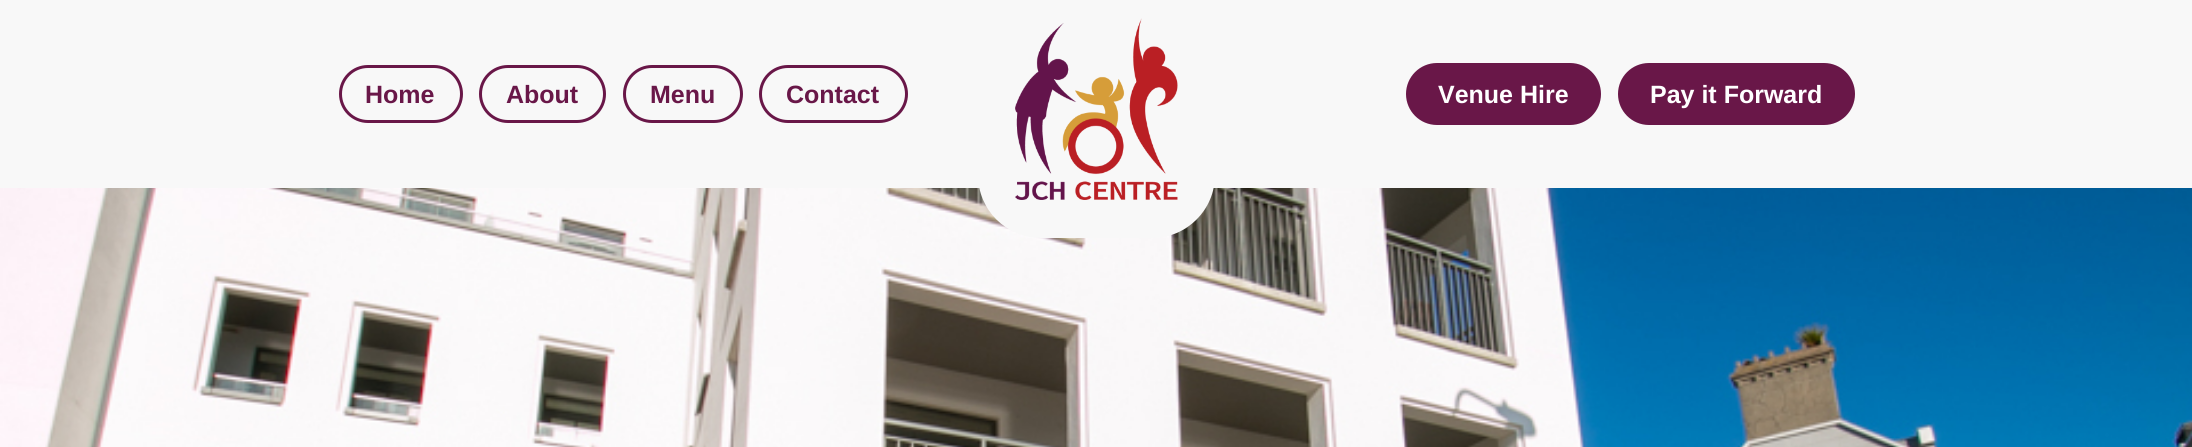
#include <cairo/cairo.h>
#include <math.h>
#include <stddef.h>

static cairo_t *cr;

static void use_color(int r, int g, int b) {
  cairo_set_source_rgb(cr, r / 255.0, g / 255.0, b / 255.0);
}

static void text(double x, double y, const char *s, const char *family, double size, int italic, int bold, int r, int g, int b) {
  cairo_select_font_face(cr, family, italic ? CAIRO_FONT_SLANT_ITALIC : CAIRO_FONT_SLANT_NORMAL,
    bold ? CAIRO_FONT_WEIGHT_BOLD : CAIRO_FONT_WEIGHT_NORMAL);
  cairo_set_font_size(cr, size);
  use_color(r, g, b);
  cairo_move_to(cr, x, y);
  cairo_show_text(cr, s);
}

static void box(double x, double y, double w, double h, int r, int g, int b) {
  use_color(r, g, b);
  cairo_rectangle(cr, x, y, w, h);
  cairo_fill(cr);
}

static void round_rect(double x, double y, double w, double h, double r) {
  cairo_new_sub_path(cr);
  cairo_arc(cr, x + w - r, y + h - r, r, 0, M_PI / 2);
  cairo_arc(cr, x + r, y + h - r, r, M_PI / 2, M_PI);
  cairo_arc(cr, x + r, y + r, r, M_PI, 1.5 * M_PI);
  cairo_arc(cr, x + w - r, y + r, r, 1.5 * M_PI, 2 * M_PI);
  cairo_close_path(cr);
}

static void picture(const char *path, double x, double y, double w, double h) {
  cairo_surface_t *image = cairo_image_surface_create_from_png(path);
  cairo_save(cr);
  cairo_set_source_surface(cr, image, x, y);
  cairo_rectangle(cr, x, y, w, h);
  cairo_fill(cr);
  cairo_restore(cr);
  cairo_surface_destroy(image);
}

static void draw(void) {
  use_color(255, 255, 255);
  cairo_paint(cr);
  box(0, 0, 2192, 188, 248, 248, 248);
  picture("img_02.png", 0, 188, 2192, 259);
  round_rect(978, 13, 237, 225, 63);
  cairo_fill(cr);
  picture("img_01.png", 1015, 18, 163, 182);
  round_rect(340.5, 66.5, 121, 55, 27.5);
  use_color(105, 23, 72);
  cairo_set_line_width(cr, 3);
  cairo_stroke(cr);
  round_rect(480.5, 66.5, 124, 55, 27.5);
  cairo_stroke(cr);
  round_rect(624.5, 66.5, 117, 55, 27.5);
  cairo_stroke(cr);
  round_rect(760.5, 66.5, 146, 55, 27.5);
  cairo_stroke(cr);
  round_rect(1407.5, 64.5, 192, 59, 29.5);
  cairo_fill_preserve(cr);
  cairo_stroke(cr);
  round_rect(1619.5, 64.5, 234, 59, 29.5);
  cairo_fill_preserve(cr);
  cairo_stroke(cr);
  text(365, 103, "Home", "Liberation Sans", 25, 0, 1, 105, 23, 72);
  text(506, 103, "About", "Liberation Sans", 25, 0, 1, 105, 23, 72);
  text(650, 103, "Menu", "Liberation Sans", 25, 0, 1, 105, 23, 72);
  text(786, 103, "Contact", "Liberation Sans", 25, 0, 1, 105, 23, 72);
  text(1438, 103, "Venue Hire", "Liberation Sans", 25, 0, 1, 255, 255, 255);
  text(1650, 103, "Pay it Forward", "Liberation Sans", 25, 0, 1, 255, 255, 255);
}

int main(void) {
  cairo_surface_t *surface = cairo_image_surface_create(CAIRO_FORMAT_RGB24, 2192, 447);
  cr = cairo_create(surface);
  cairo_font_options_t *options = cairo_font_options_create();
  cairo_font_options_set_hint_metrics(options, CAIRO_HINT_METRICS_OFF);
  cairo_font_options_set_hint_style(options, CAIRO_HINT_STYLE_NONE);
  cairo_set_font_options(cr, options);
  cairo_set_miter_limit(cr, 4);
  draw();
  cairo_surface_write_to_png(surface, "out.png");
  cairo_font_options_destroy(options);
  cairo_destroy(cr);
  cairo_surface_destroy(surface);
  return 0;
}
